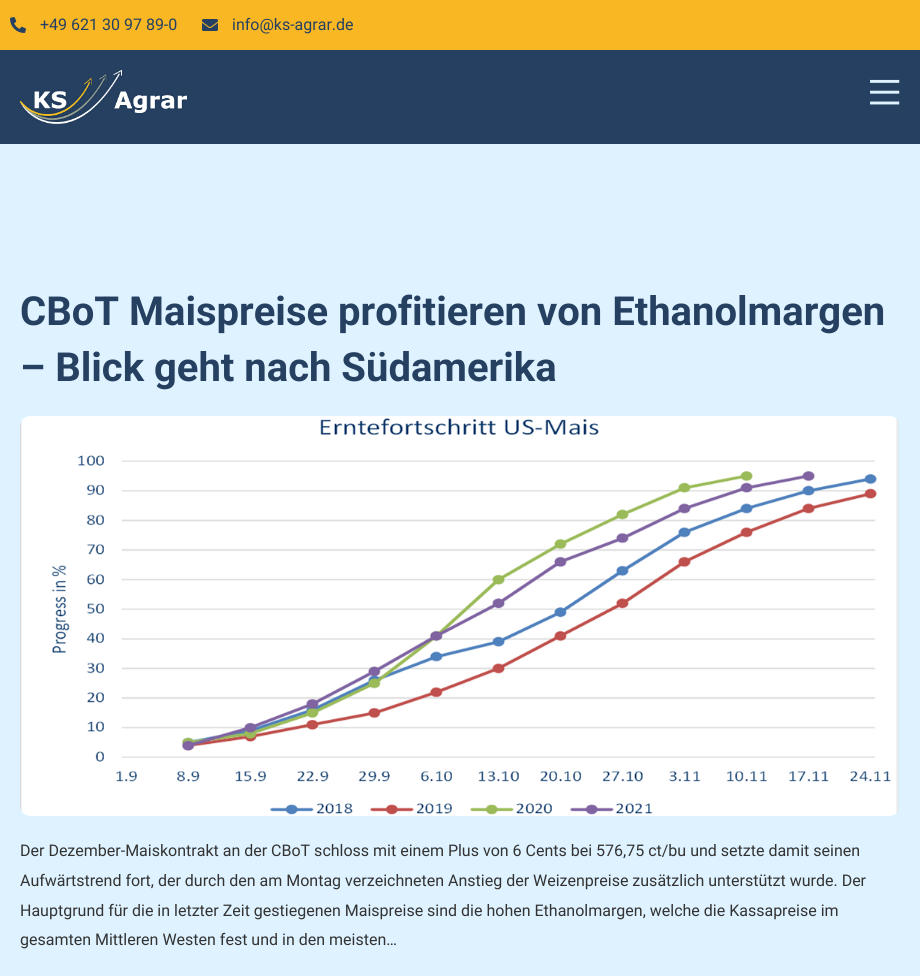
#include <cairo/cairo.h>
#include <math.h>
#include <stddef.h>

static cairo_t *cr;

static void use_color(int r, int g, int b) {
  cairo_set_source_rgb(cr, r / 255.0, g / 255.0, b / 255.0);
}

static void text(double x, double y, const char *s, const char *family, double size, int italic, int bold, int r, int g, int b) {
  cairo_select_font_face(cr, family, italic ? CAIRO_FONT_SLANT_ITALIC : CAIRO_FONT_SLANT_NORMAL,
    bold ? CAIRO_FONT_WEIGHT_BOLD : CAIRO_FONT_WEIGHT_NORMAL);
  cairo_set_font_size(cr, size);
  use_color(r, g, b);
  cairo_move_to(cr, x, y);
  cairo_show_text(cr, s);
}

static void box(double x, double y, double w, double h, int r, int g, int b) {
  use_color(r, g, b);
  cairo_rectangle(cr, x, y, w, h);
  cairo_fill(cr);
}

static void picture(const char *path, double x, double y, double w, double h) {
  cairo_surface_t *image = cairo_image_surface_create_from_png(path);
  cairo_save(cr);
  cairo_set_source_surface(cr, image, x, y);
  cairo_rectangle(cr, x, y, w, h);
  cairo_fill(cr);
  cairo_restore(cr);
  cairo_surface_destroy(image);
}

static void draw(void) {
  use_color(222, 242, 255);
  cairo_paint(cr);
  box(0, 0, 920, 50, 249, 183, 36);
  picture("img_01.png", 10, 17, 16, 16);
  picture("img_02.png", 202, 19, 16, 12);
  box(0, 50, 920, 94, 38, 64, 97);
  picture("img_03.png", 20, 70, 167, 54);
  picture("img_04.png", 870, 79, 30, 26);
  picture("img_05.png", 20, 416, 879, 400);
  text(40, 30, "+49 621 30 97 89-0", "Roboto", 16, 0, 0, 38, 64, 97);
  text(232, 30, "info@ks-agrar.de", "Roboto", 16, 0, 0, 38, 64, 97);
  text(20, 325, "CBoT Maispreise profitieren von Ethanolmargen", "Roboto", 40, 0, 1, 38, 64, 97);
  text(20, 381, "– Blick geht nach Südamerika", "Roboto", 40, 0, 1, 38, 64, 97);
  text(20, 856, "Der Dezember-Maiskontrakt an der CBoT schloss mit einem Plus von 6 Cents bei 576,75 ct/bu und setzte damit seinen", "Roboto", 16, 0, 0, 51, 51, 51);
  text(20, 886, "Aufwärtstrend fort, der durch den am Montag verzeichneten Anstieg der Weizenpreise zusätzlich unterstützt wurde. Der", "Roboto", 16, 0, 0, 51, 51, 51);
  text(20, 916, "Hauptgrund für die in letzter Zeit gestiegenen Maispreise sind die hohen Ethanolmargen, welche die Kassapreise im", "Roboto", 16, 0, 0, 51, 51, 51);
  text(20, 945, "gesamten Mittleren Westen fest und in den meisten…", "Roboto", 16, 0, 0, 51, 51, 51);
}

int main(void) {
  cairo_surface_t *surface = cairo_image_surface_create(CAIRO_FORMAT_RGB24, 920, 976);
  cr = cairo_create(surface);
  cairo_font_options_t *options = cairo_font_options_create();
  cairo_font_options_set_hint_metrics(options, CAIRO_HINT_METRICS_OFF);
  cairo_font_options_set_hint_style(options, CAIRO_HINT_STYLE_NONE);
  cairo_set_font_options(cr, options);
  cairo_set_miter_limit(cr, 4);
  draw();
  cairo_surface_write_to_png(surface, "out.png");
  cairo_font_options_destroy(options);
  cairo_destroy(cr);
  cairo_surface_destroy(surface);
  return 0;
}
